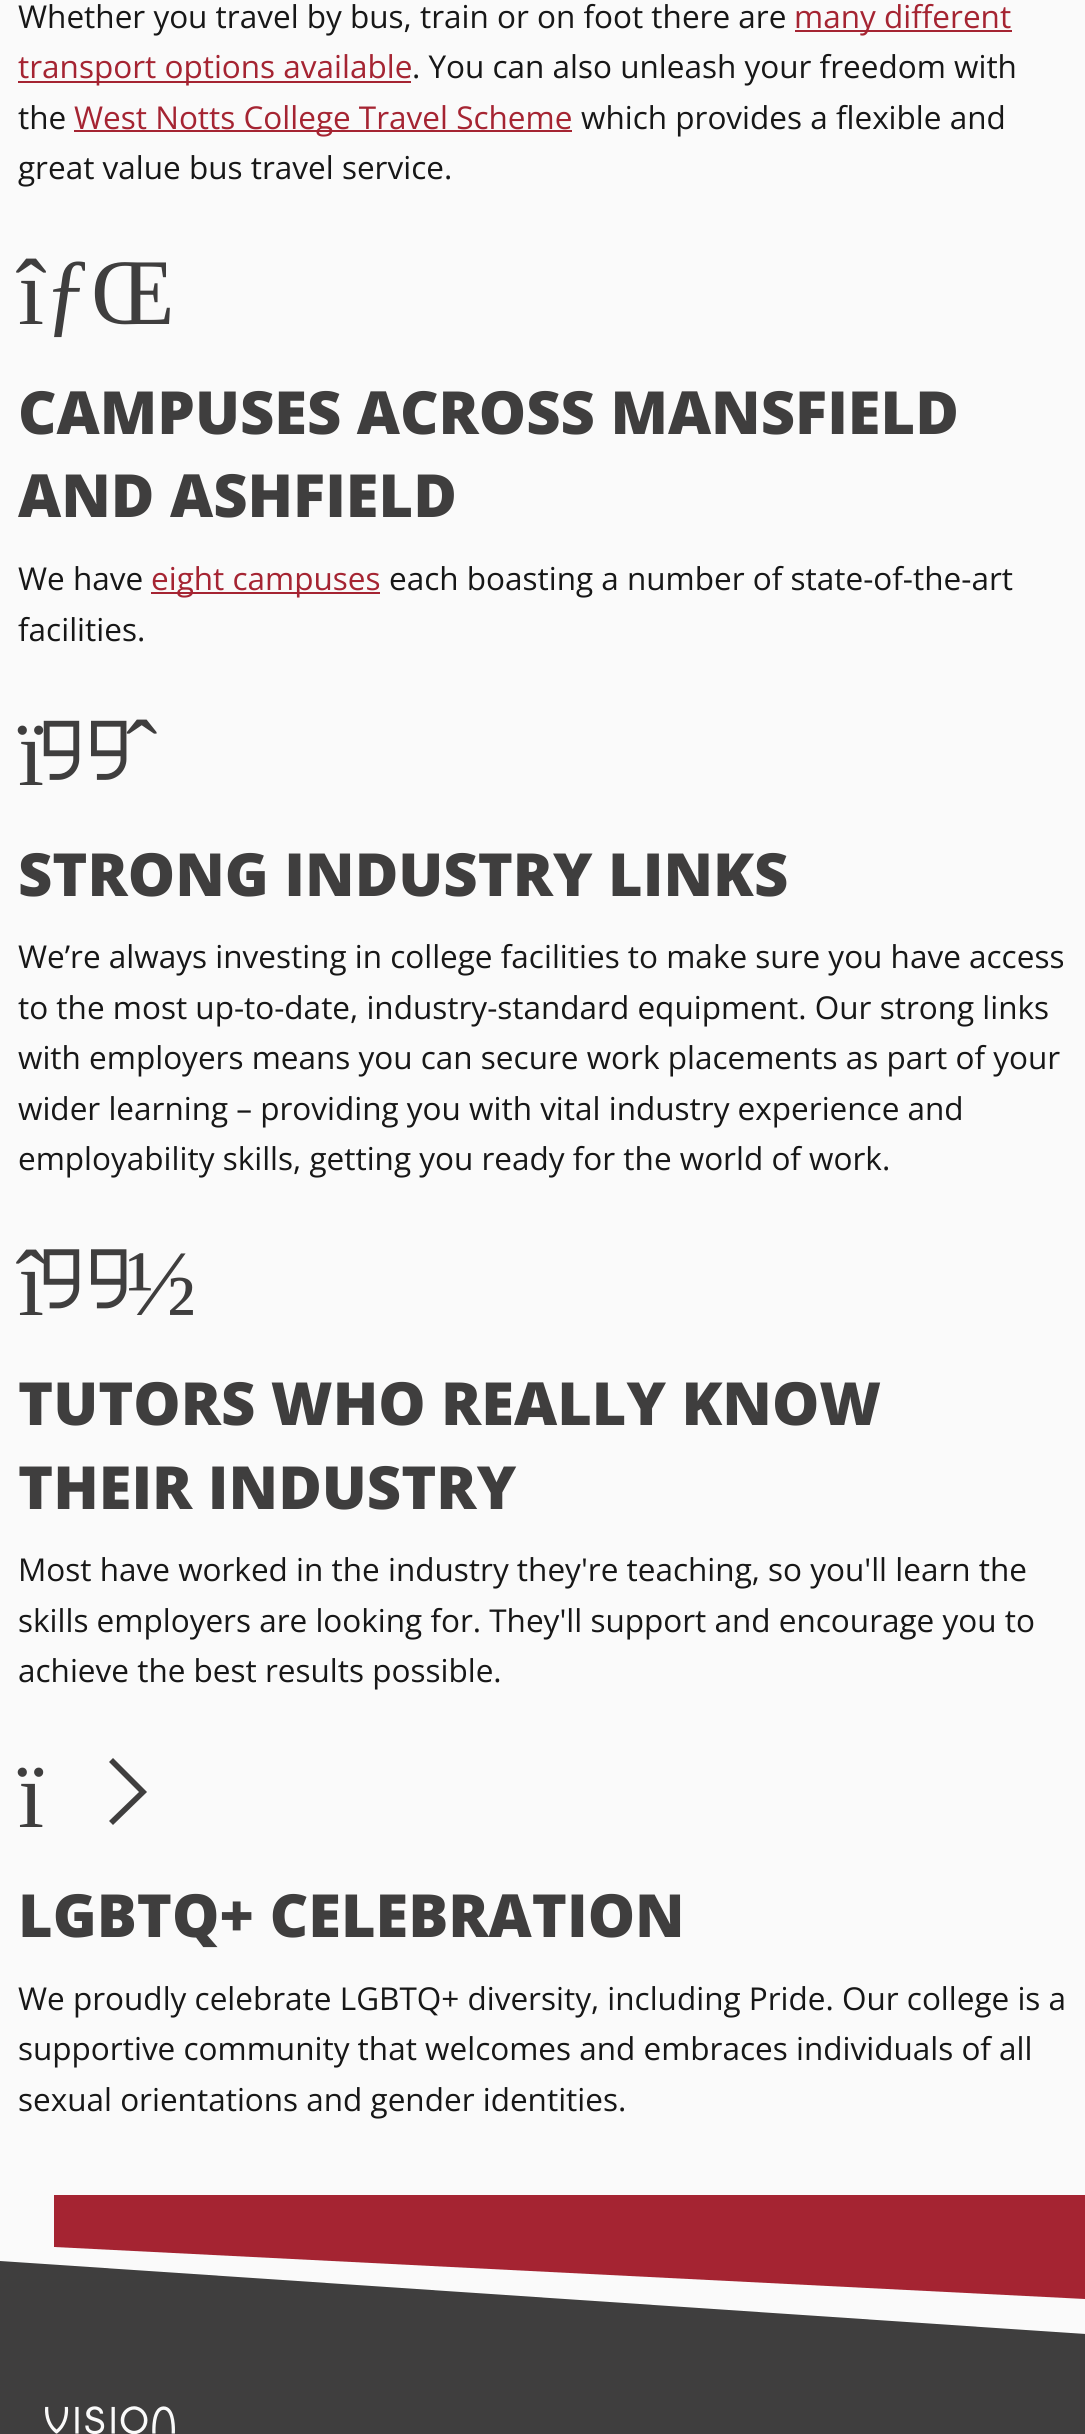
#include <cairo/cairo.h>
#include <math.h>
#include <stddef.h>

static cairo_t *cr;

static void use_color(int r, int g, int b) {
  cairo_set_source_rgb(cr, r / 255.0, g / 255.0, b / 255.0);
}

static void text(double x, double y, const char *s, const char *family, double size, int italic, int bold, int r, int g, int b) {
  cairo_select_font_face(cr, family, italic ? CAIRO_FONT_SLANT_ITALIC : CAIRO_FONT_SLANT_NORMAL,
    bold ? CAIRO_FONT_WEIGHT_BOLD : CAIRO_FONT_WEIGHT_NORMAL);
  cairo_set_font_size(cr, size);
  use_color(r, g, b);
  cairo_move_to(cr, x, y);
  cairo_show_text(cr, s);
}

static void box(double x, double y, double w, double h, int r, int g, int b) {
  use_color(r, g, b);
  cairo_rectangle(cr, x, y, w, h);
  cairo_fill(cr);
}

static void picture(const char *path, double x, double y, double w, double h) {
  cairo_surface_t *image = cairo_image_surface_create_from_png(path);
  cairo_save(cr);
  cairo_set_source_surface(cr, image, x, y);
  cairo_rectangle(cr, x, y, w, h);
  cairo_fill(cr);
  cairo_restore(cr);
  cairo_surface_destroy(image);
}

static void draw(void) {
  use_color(250, 250, 250);
  cairo_paint(cr);
  box(795, 30, 217, 2, 165, 36, 50);
  box(18, 81, 393, 2, 165, 36, 50);
  box(74, 130, 498, 2, 165, 36, 50);
  box(151, 592, 229, 2, 165, 36, 50);
  picture("img_01.png", 43, 720, 84, 60);
  picture("img_02.png", 43, 1249, 84, 60);
  use_color(63, 62, 62);
  cairo_new_path(cr);
  cairo_move_to(cr, 147, 1792);
  cairo_line_to(cr, 113, 1825);
  cairo_line_to(cr, 109, 1821);
  cairo_line_to(cr, 139, 1792);
  cairo_line_to(cr, 109, 1762);
  cairo_line_to(cr, 113, 1758);
  cairo_close_path(cr);
  cairo_fill(cr);
  use_color(165, 36, 50);
  cairo_new_path(cr);
  cairo_move_to(cr, 1085, 2299);
  cairo_line_to(cr, 1085, 2195);
  cairo_line_to(cr, 54, 2195);
  cairo_line_to(cr, 54, 2247);
  cairo_close_path(cr);
  cairo_fill(cr);
  use_color(63, 62, 62);
  cairo_new_path(cr);
  cairo_move_to(cr, 0, 2261);
  cairo_line_to(cr, 0, 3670);
  cairo_line_to(cr, 1085, 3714);
  cairo_line_to(cr, 1085, 2334);
  cairo_close_path(cr);
  cairo_fill(cr);
  picture("img_03.png", 45, 2406, 130, 28);
  text(18, 28, "Whether you travel by bus, train or on foot there are", "Open Sans", 31.5, 0, 0, 23, 23, 23);
  text(794, 28, "many different", "Open Sans", 31.5, 0, 0, 165, 36, 50);
  text(18, 78, "transport options available", "Open Sans", 31.5, 0, 0, 165, 36, 50);
  text(412, 78, ". You can also unleash your freedom with", "Open Sans", 31.5, 0, 0, 23, 23, 23);
  text(18, 129, "the", "Open Sans", 31.5, 0, 0, 23, 23, 23);
  text(74, 129, "West Notts College Travel Scheme", "Open Sans", 31.5, 0, 0, 165, 36, 50);
  text(581, 129, "which provides a flexible and", "Open Sans", 31.5, 0, 0, 23, 23, 23);
  text(18, 179, "great value bus travel service.", "Open Sans", 31.5, 0, 0, 23, 23, 23);
  text(18, 324, "îƒŒ", "Liberation Serif", 94, 0, 0, 63, 62, 62);
  text(18, 434, "CAMPUSES ACROSS MANSFIELD", "Open Sans ExtraBold", 59.5, 0, 0, 63, 62, 62);
  text(18, 517, "AND ASHFIELD", "Open Sans ExtraBold", 59.5, 0, 0, 63, 62, 62);
  text(18, 590, "We have", "Open Sans", 31.5, 0, 0, 23, 23, 23);
  text(151, 590, "eight campuses", "Open Sans", 31.5, 0, 0, 165, 36, 50);
  text(389, 590, "each boasting a number of state-of-the-art", "Open Sans", 31.5, 0, 0, 23, 23, 23);
  text(18, 641, "facilities.", "Open Sans", 31.5, 0, 0, 23, 23, 23);
  text(18, 785, "ï", "Liberation Serif", 94, 0, 0, 63, 62, 62);
  text(126, 785, "ˆ", "Liberation Serif", 94, 0, 0, 63, 62, 62);
  text(18, 896, "STRONG INDUSTRY LINKS", "Open Sans ExtraBold", 59.5, 0, 0, 63, 62, 62);
  text(18, 968, "We’re always investing in college facilities to make sure you have access", "Open Sans", 31.5, 0, 0, 23, 23, 23);
  text(18, 1019, "to the most up-to-date, industry-standard equipment. Our strong links", "Open Sans", 31.5, 0, 0, 23, 23, 23);
  text(18, 1069, "with employers means you can secure work placements as part of your", "Open Sans", 31.5, 0, 0, 23, 23, 23);
  text(18, 1120, "wider learning – providing you with vital industry experience and", "Open Sans", 31.5, 0, 0, 23, 23, 23);
  text(18, 1170, "employability skills, getting you ready for the world of work.", "Open Sans", 31.5, 0, 0, 23, 23, 23);
  text(18, 1315, "î", "Liberation Serif", 94, 0, 0, 63, 62, 62);
  text(126, 1315, "½", "Liberation Serif", 94, 0, 0, 63, 62, 62);
  text(18, 1425, "TUTORS WHO REALLY KNOW", "Open Sans ExtraBold", 59.5, 0, 0, 63, 62, 62);
  text(18, 1509, "THEIR INDUSTRY", "Open Sans ExtraBold", 59.5, 0, 0, 63, 62, 62);
  text(18, 1581, "Most have worked in the industry they're teaching, so you'll learn the", "Open Sans", 31.5, 0, 0, 23, 23, 23);
  text(18, 1632, "skills employers are looking for. They'll support and encourage you to", "Open Sans", 31.5, 0, 0, 23, 23, 23);
  text(18, 1682, "achieve the best results possible.", "Open Sans", 31.5, 0, 0, 23, 23, 23);
  text(18, 1827, "ï", "Liberation Serif", 94, 0, 0, 63, 62, 62);
  text(18, 1937, "LGBTQ+ CELEBRATION", "Open Sans ExtraBold", 59.5, 0, 0, 63, 62, 62);
  text(18, 2010, "We proudly celebrate LGBTQ+ diversity, including Pride. Our college is a", "Open Sans", 31.5, 0, 0, 23, 23, 23);
  text(18, 2060, "supportive community that welcomes and embraces individuals of all", "Open Sans", 31.5, 0, 0, 23, 23, 23);
  text(18, 2111, "sexual orientations and gender identities.", "Open Sans", 31.5, 0, 0, 23, 23, 23);
}

int main(void) {
  cairo_surface_t *surface = cairo_image_surface_create(CAIRO_FORMAT_RGB24, 1085, 2434);
  cr = cairo_create(surface);
  cairo_font_options_t *options = cairo_font_options_create();
  cairo_font_options_set_hint_metrics(options, CAIRO_HINT_METRICS_OFF);
  cairo_font_options_set_hint_style(options, CAIRO_HINT_STYLE_NONE);
  cairo_set_font_options(cr, options);
  cairo_set_miter_limit(cr, 4);
  draw();
  cairo_surface_write_to_png(surface, "out.png");
  cairo_font_options_destroy(options);
  cairo_destroy(cr);
  cairo_surface_destroy(surface);
  return 0;
}
